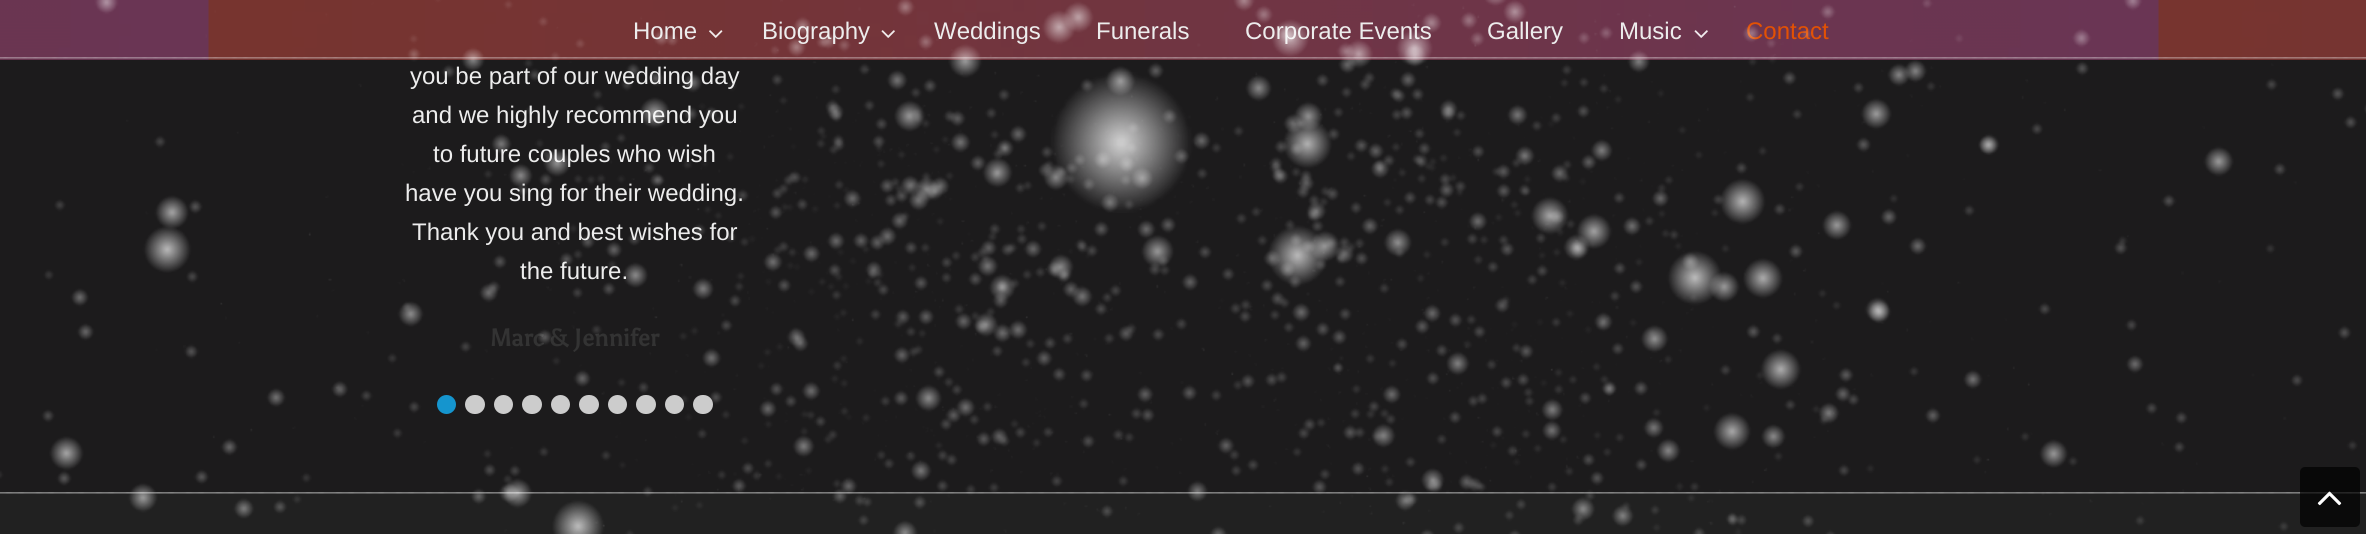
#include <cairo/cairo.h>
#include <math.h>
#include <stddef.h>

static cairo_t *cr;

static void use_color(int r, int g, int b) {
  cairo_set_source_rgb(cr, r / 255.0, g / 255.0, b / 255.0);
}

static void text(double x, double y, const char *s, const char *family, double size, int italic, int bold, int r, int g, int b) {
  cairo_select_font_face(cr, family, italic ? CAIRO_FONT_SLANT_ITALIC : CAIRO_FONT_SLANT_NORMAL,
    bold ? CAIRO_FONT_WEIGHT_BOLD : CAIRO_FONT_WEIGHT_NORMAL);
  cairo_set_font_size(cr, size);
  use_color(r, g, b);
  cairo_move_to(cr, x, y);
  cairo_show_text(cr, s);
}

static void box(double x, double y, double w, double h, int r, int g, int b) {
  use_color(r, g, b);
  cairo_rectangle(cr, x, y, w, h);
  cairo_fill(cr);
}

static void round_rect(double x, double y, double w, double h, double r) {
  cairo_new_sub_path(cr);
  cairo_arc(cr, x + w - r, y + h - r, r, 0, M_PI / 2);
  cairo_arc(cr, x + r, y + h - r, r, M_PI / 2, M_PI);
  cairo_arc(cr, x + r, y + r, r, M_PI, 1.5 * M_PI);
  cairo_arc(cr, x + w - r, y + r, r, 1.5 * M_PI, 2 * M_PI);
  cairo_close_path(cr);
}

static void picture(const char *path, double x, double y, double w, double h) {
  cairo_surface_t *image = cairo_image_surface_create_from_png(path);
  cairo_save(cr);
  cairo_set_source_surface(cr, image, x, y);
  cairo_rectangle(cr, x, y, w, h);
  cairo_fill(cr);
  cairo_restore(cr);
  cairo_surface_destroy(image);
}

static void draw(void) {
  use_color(33, 33, 33);
  cairo_paint(cr);
  box(0, 0, 2366, 492, 28, 27, 28);
  picture("img_02.png", 0, 0, 2366, 60);
  picture("img_03.png", 709, 30, 14, 8);
  picture("img_04.png", 881, 30, 14, 8);
  picture("img_05.png", 1694, 30, 14, 8);
  picture("img_06.png", 0, 57, 2366, 3);
  use_color(21, 149, 206);
  cairo_arc(cr, 446.5, 404.5, 9.5, 0, 2 * M_PI);
  cairo_fill(cr);
  use_color(204, 204, 204);
  round_rect(465, 395, 20, 19, 9.5);
  cairo_fill(cr);
  cairo_arc(cr, 503.5, 404.5, 9.5, 0, 2 * M_PI);
  cairo_fill(cr);
  round_rect(522, 395, 20, 19, 9.5);
  cairo_fill(cr);
  cairo_arc(cr, 560.5, 404.5, 9.5, 0, 2 * M_PI);
  cairo_fill(cr);
  round_rect(579, 395, 20, 19, 9.5);
  cairo_fill(cr);
  cairo_arc(cr, 617.5, 404.5, 9.5, 0, 2 * M_PI);
  cairo_fill(cr);
  round_rect(636, 395, 20, 19, 9.5);
  cairo_fill(cr);
  cairo_arc(cr, 674.5, 404.5, 9.5, 0, 2 * M_PI);
  cairo_fill(cr);
  round_rect(693, 395, 20, 19, 9.5);
  cairo_fill(cr);
  picture("img_08.png", 0, 492, 2366, 2);
  cairo_set_source_rgba(cr, 0, 0, 0, 0.7);
  round_rect(2300, 467, 60, 60, 5);
  cairo_fill(cr);
  picture("img_07.png", 2317, 491, 25, 15);
  text(633, 39, "Home", "Liberation Sans", 24, 0, 0, 237, 237, 237);
  text(762, 39, "Biography", "Liberation Sans", 24, 0, 0, 237, 237, 237);
  text(934, 39, "Weddings", "Liberation Sans", 24, 0, 0, 237, 237, 237);
  text(1096, 39, "Funerals", "Liberation Sans", 24, 0, 0, 237, 237, 237);
  text(1245, 39, "Corporate Events", "Liberation Sans", 24, 0, 0, 237, 237, 237);
  text(1487, 39, "Gallery", "Liberation Sans", 24, 0, 0, 237, 237, 237);
  text(1619, 39, "Music", "Liberation Sans", 24, 0, 0, 237, 237, 237);
  text(1746, 39, "Contact", "Liberation Sans", 24, 0, 0, 227, 81, 3);
  text(410, 84, "you be part of our wedding day", "Liberation Sans", 24, 0, 0, 237, 237, 237);
  text(412, 123, "and we highly recommend you", "Liberation Sans", 24, 0, 0, 237, 237, 237);
  text(433, 162, "to future couples who wish", "Liberation Sans", 24, 0, 0, 237, 237, 237);
  text(405, 201, "have you sing for their wedding.", "Liberation Sans", 24, 0, 0, 237, 237, 237);
  text(412, 240, "Thank you and best wishes for", "Liberation Sans", 24, 0, 0, 237, 237, 237);
  text(520, 279, "the future.", "Liberation Sans", 24, 0, 0, 237, 237, 237);
  text(490, 346, "Marc & Jennifer", "Asul", 24, 0, 1, 51, 51, 51);
  picture("img_01.png", 0, 0, 2366, 534);
}

int main(void) {
  cairo_surface_t *surface = cairo_image_surface_create(CAIRO_FORMAT_RGB24, 2366, 534);
  cr = cairo_create(surface);
  cairo_font_options_t *options = cairo_font_options_create();
  cairo_font_options_set_hint_metrics(options, CAIRO_HINT_METRICS_OFF);
  cairo_font_options_set_hint_style(options, CAIRO_HINT_STYLE_NONE);
  cairo_set_font_options(cr, options);
  cairo_set_miter_limit(cr, 4);
  draw();
  cairo_surface_write_to_png(surface, "out.png");
  cairo_font_options_destroy(options);
  cairo_destroy(cr);
  cairo_surface_destroy(surface);
  return 0;
}
